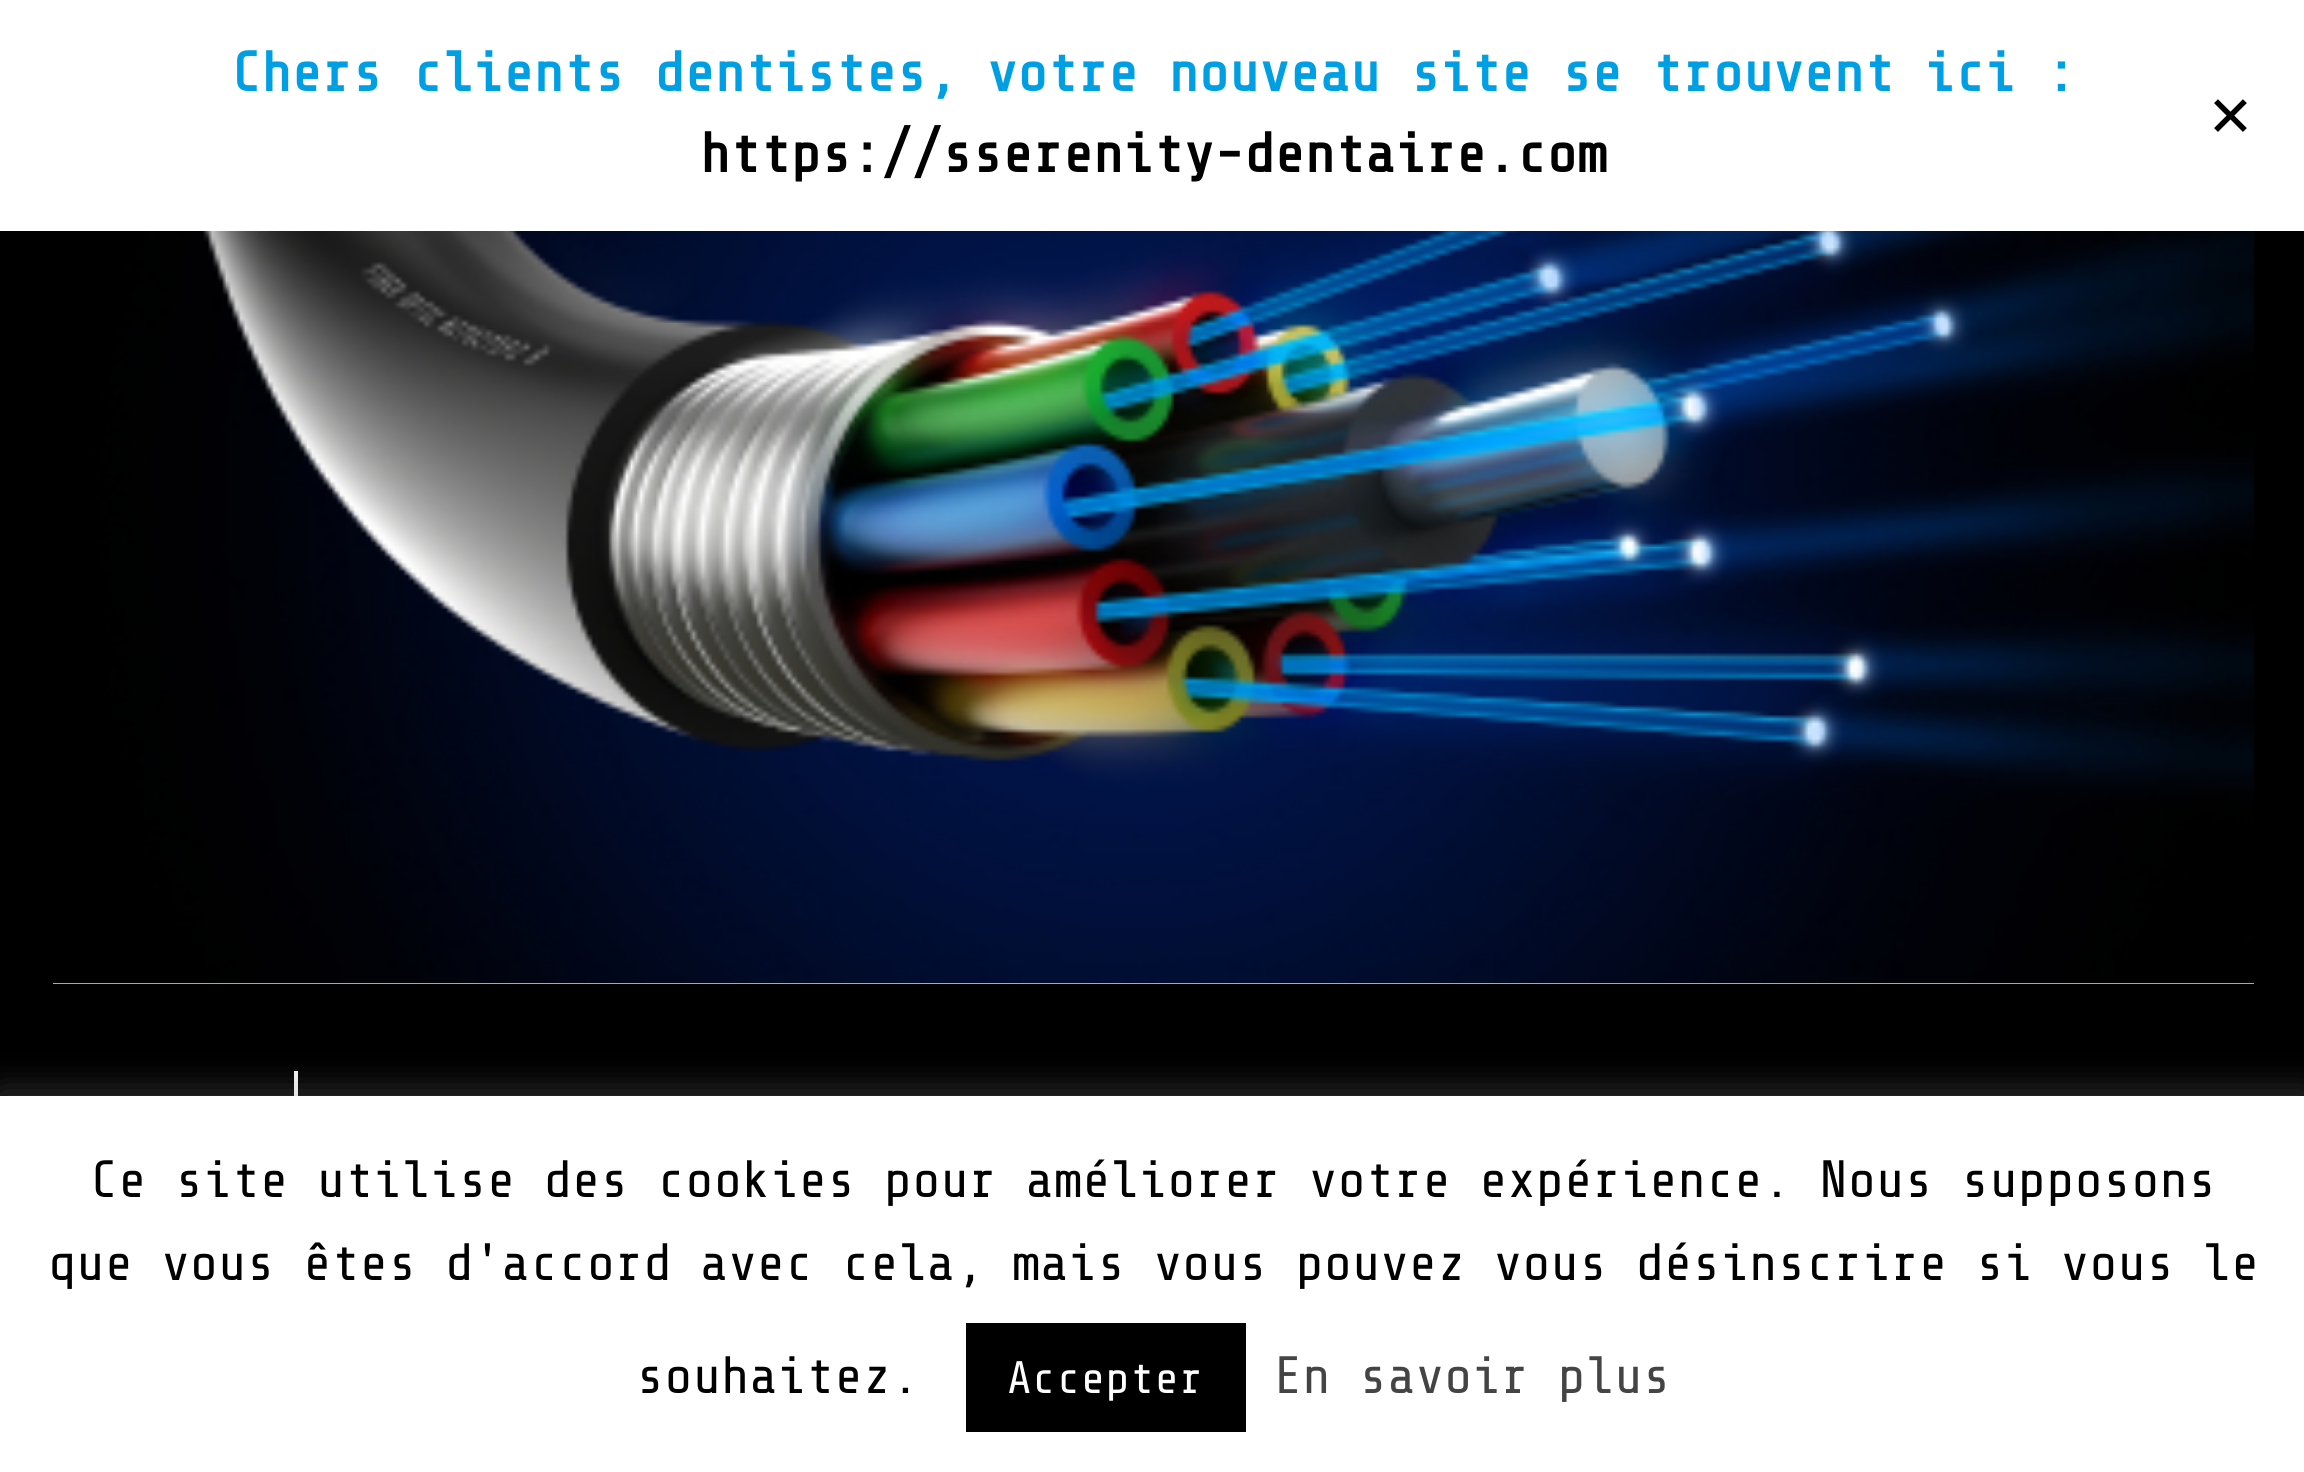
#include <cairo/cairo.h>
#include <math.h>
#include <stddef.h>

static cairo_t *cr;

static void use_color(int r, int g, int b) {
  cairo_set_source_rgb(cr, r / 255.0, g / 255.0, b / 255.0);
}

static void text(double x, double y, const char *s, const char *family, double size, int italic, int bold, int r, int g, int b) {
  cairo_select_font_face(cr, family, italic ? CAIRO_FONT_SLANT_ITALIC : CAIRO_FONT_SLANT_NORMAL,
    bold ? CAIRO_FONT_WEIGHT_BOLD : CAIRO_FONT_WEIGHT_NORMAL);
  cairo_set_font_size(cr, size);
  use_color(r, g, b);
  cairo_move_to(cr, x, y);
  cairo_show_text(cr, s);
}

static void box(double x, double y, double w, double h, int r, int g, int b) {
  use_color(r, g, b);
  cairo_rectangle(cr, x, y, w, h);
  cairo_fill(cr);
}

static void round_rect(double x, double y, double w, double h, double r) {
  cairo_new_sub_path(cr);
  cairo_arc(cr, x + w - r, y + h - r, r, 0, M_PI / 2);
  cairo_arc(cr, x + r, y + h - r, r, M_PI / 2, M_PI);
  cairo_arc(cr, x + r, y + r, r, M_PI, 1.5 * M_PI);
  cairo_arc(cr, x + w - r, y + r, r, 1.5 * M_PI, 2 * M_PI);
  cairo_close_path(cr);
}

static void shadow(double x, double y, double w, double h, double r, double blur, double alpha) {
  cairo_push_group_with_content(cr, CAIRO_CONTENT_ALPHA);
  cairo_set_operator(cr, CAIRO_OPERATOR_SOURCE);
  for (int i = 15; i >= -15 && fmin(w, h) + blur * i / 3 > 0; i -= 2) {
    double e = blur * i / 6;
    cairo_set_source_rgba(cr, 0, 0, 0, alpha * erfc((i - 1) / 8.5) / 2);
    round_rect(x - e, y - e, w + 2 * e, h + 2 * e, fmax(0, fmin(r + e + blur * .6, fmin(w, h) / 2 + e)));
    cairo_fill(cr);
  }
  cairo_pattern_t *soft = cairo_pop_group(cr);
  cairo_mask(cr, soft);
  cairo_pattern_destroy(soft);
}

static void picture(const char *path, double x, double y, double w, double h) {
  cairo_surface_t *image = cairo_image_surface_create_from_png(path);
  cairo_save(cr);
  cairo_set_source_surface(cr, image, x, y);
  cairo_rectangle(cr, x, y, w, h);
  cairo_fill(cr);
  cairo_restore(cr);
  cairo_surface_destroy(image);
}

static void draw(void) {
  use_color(0, 0, 0);
  cairo_paint(cr);
  box(0, 0, 2304, 231, 255, 255, 255);
  box(53, 983, 2201, 1, 224, 224, 224);
  picture("img_01.png", 53, 231, 2201, 753);
  box(294, 1071, 4, 25, 239, 239, 239);
  use_color(172, 171, 171);
  shadow(0, 1092, 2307, 378, 0, 17.5, 0.3);
  box(0, 1096, 2304, 376, 255, 255, 255);
  box(966, 1323, 280, 109, 0, 0, 0);
  text(231, 91, "Chers clients dentistes, votre nouveau site se trouvent ici :", "Share Tech Mono", 56, 0, 1, 0, 159, 227);
  text(700, 172, "https://sserenity-dentaire.com", "Share Tech Mono", 56, 0, 1, 0, 0, 0);
  text(2207, 136, "✕", "DejaVu Sans", 56, 0, 0, 0, 0, 0);
  text(90, 1197, "Ce site utilise des cookies pour améliorer votre expérience. Nous supposons", "Share Tech Mono", 52.5, 0, 0, 0, 0, 0);
  text(48, 1280, "que vous êtes d'accord avec cela, mais vous pouvez vous désinscrire si vous le", "Share Tech Mono", 52.5, 0, 0, 0, 0, 0);
  text(636, 1393, "souhaitez.", "Share Tech Mono", 52.5, 0, 0, 0, 0, 0);
  text(1007, 1393, "Accepter", "Share Tech Mono", 45.5, 0, 0, 255, 255, 255);
  text(1274, 1393, "En savoir plus", "Share Tech Mono", 52.5, 0, 0, 68, 68, 68);
}

int main(void) {
  cairo_surface_t *surface = cairo_image_surface_create(CAIRO_FORMAT_RGB24, 2304, 1472);
  cr = cairo_create(surface);
  cairo_font_options_t *options = cairo_font_options_create();
  cairo_font_options_set_hint_metrics(options, CAIRO_HINT_METRICS_OFF);
  cairo_font_options_set_hint_style(options, CAIRO_HINT_STYLE_NONE);
  cairo_set_font_options(cr, options);
  cairo_set_miter_limit(cr, 4);
  draw();
  cairo_surface_write_to_png(surface, "out.png");
  cairo_font_options_destroy(options);
  cairo_destroy(cr);
  cairo_surface_destroy(surface);
  return 0;
}
